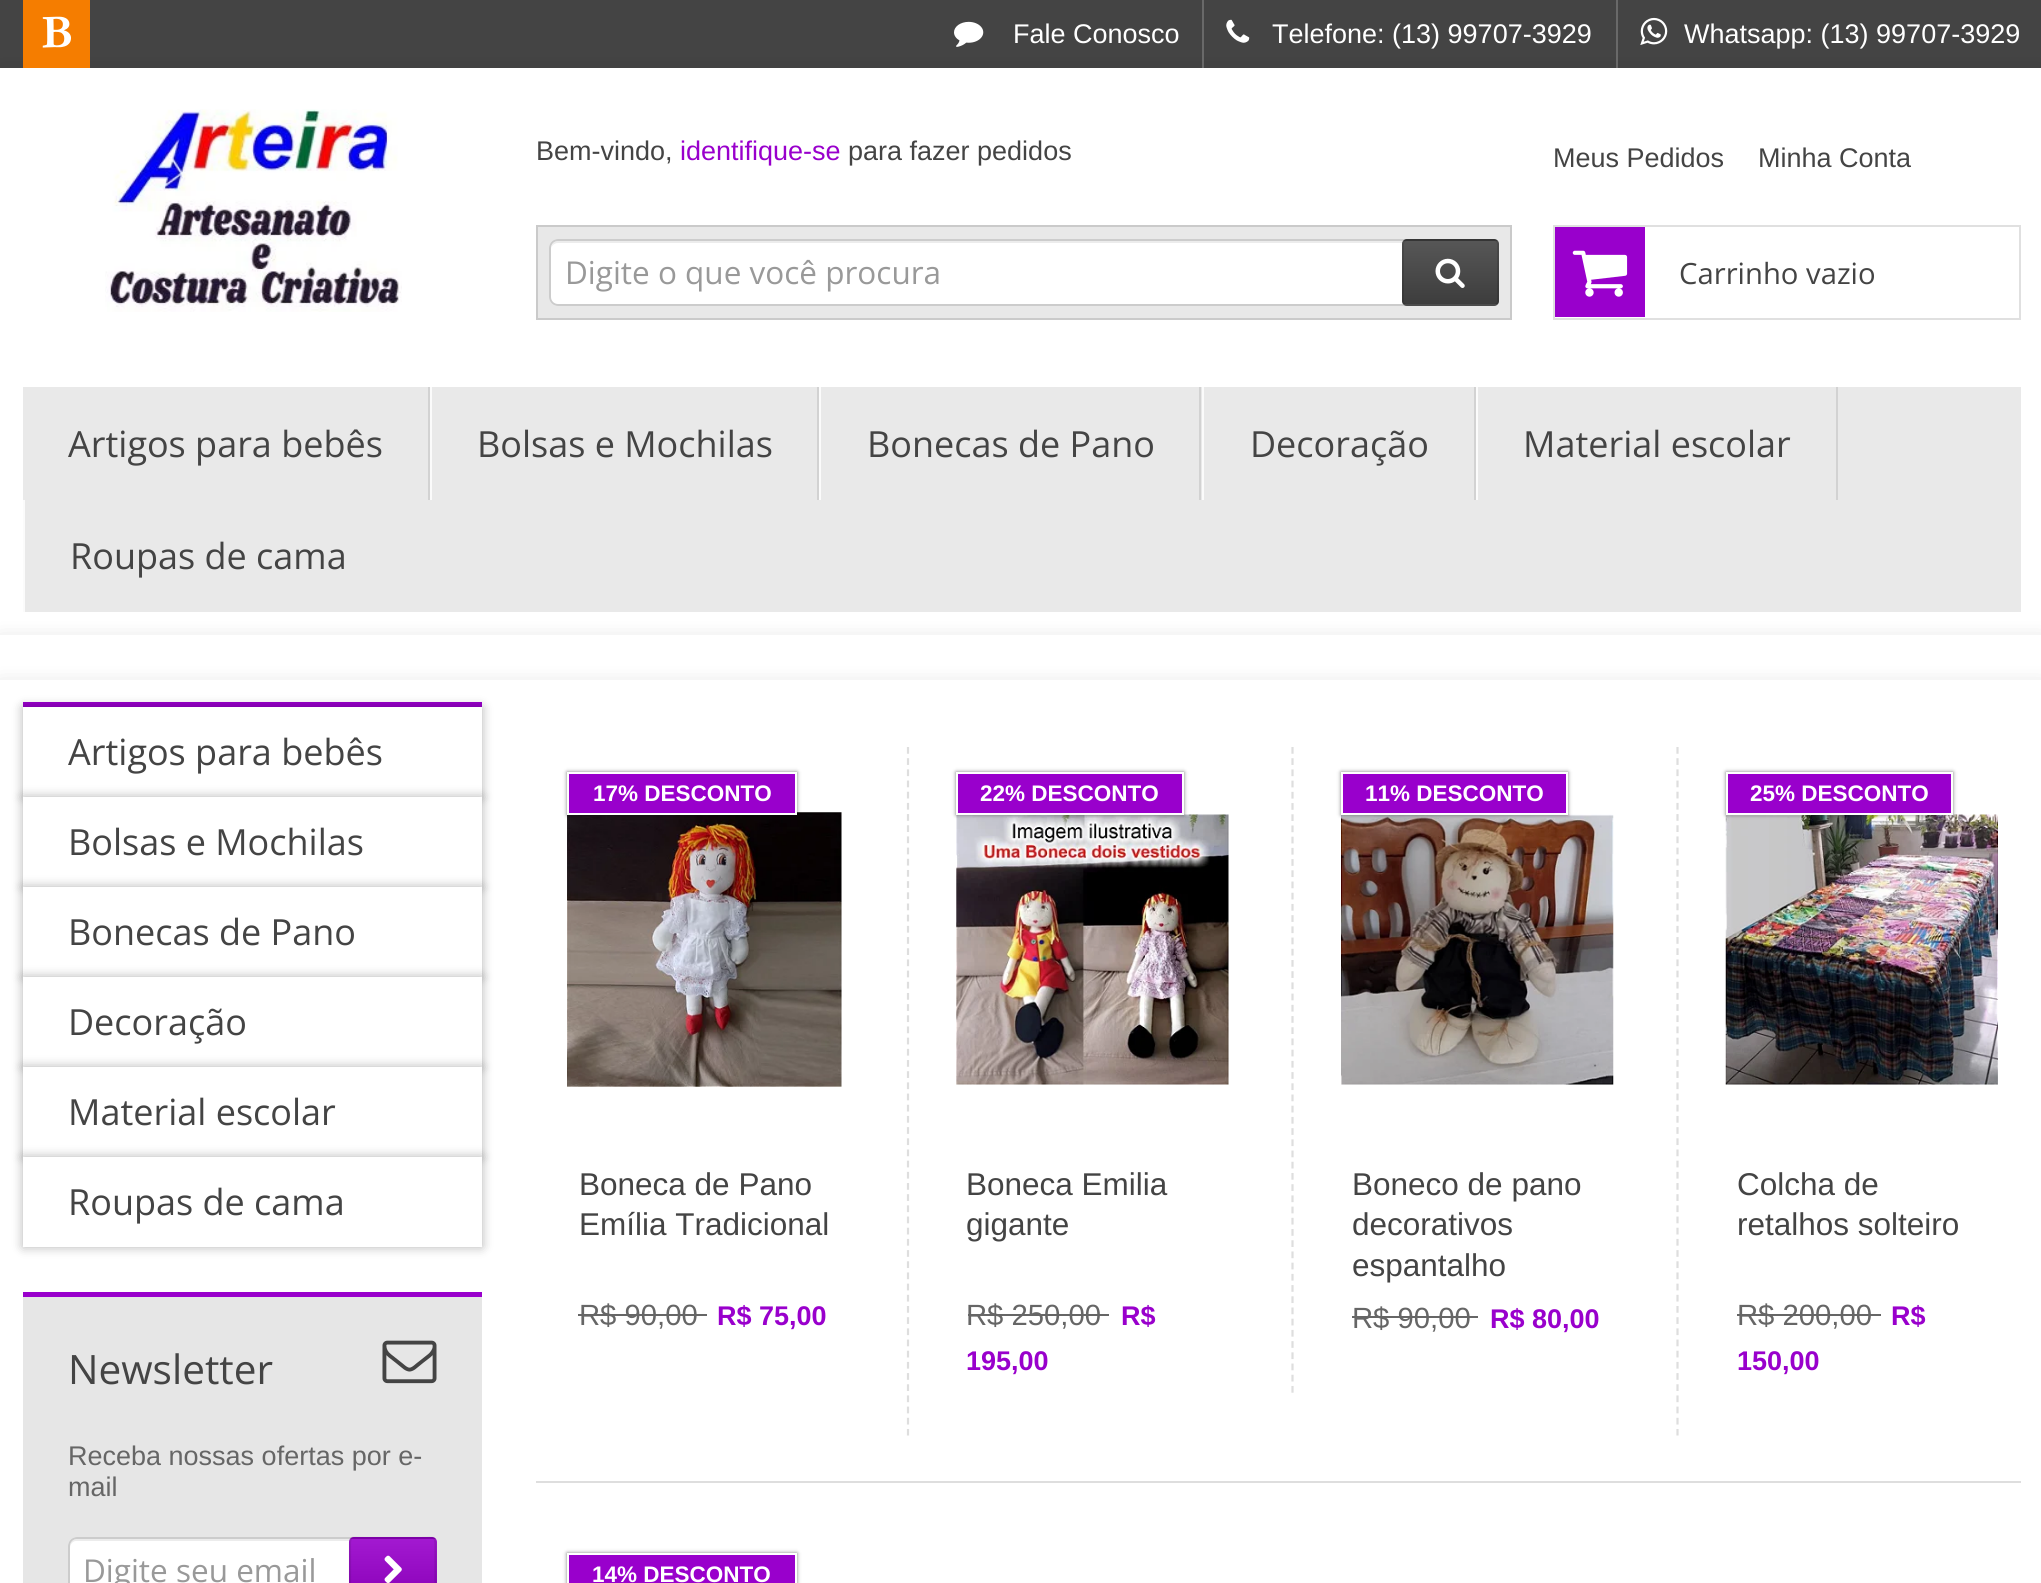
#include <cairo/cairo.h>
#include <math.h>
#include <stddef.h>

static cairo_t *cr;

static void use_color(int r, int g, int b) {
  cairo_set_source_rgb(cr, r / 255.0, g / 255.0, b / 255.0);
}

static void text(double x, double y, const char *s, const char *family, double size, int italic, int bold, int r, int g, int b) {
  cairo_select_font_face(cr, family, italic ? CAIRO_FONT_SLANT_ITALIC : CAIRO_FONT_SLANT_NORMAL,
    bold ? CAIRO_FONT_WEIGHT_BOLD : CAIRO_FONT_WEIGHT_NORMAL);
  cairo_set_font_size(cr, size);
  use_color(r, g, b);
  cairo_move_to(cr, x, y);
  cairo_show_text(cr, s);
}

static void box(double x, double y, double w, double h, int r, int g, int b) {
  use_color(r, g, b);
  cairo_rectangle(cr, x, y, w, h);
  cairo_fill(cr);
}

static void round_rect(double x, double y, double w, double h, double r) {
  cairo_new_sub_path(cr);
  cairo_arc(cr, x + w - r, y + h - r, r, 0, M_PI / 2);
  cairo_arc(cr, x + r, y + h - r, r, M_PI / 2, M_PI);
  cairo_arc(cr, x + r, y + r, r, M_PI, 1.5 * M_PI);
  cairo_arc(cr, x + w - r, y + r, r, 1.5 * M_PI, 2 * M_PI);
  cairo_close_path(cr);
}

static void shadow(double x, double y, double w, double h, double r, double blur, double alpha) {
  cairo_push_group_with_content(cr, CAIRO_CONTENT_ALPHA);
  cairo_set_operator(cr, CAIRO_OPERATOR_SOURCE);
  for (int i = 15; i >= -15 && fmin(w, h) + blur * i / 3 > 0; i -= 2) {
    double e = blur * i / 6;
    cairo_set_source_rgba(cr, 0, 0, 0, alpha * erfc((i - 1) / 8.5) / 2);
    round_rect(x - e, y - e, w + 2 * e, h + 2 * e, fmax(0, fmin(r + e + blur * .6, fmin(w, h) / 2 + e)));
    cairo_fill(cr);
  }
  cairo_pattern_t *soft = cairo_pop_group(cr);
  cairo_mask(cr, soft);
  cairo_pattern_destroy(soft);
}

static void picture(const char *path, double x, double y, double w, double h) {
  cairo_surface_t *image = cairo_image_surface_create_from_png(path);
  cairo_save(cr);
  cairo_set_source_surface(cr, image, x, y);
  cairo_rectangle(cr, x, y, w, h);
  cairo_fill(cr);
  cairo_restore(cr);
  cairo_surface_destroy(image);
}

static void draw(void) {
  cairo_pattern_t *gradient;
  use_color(68, 68, 68);
  cairo_paint(cr);
  use_color(0, 0, 0);
  shadow(0, 74, 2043, 567, 0, 11, 0.15);
  box(23, 0, 67, 68, 245, 125, 0);
  picture("img_01.png", 42, 16, 29, 32);
  picture("img_02.png", 954, 21, 30, 26);
  cairo_set_source_rgba(cr, 1, 1, 1, 0.2);
  cairo_rectangle(cr, 1202, 0, 2, 68);
  cairo_fill(cr);
  picture("img_03.png", 1226, 19, 24, 24);
  cairo_rectangle(cr, 1616, 0, 2, 68);
  cairo_fill(cr);
  picture("img_04.png", 1640, 17, 28, 28);
  box(0, 68, 2041, 567, 255, 255, 255);
  picture("img_05.png", 105, 109, 297, 203);
  use_color(232, 232, 232);
  cairo_rectangle(cr, 537, 226, 974, 93);
  cairo_fill_preserve(cr);
  use_color(202, 202, 202);
  cairo_stroke(cr);
  use_color(255, 255, 255);
  round_rect(549, 239, 925, 67, 9);
  cairo_fill(cr);
  use_color(236, 236, 236);
  cairo_new_path(cr);
  cairo_move_to(cr, 558, 243);
  cairo_line_to(cr, 1465, 243);
  cairo_curve_to(cr, 1468, 243, 1472, 246, 1472, 250);
  cairo_curve_to(cr, 1472, 246, 1470, 241, 1465, 241);
  cairo_line_to(cr, 558, 241);
  cairo_curve_to(cr, 553, 241, 551, 246, 551, 250);
  cairo_curve_to(cr, 551, 246, 554, 243, 558, 243);
  cairo_close_path(cr);
  cairo_fill(cr);
  round_rect(550, 240, 923, 65, 8);
  use_color(204, 204, 204);
  cairo_stroke(cr);
  use_color(68, 68, 68);
  round_rect(1402, 239, 97, 67, 5);
  cairo_fill(cr);
  cairo_save(cr);
  round_rect(1402, 239, 97, 67, 5);
  cairo_clip(cr);
  gradient = cairo_pattern_create_linear(1450, 178, 1450, 241);
  cairo_pattern_add_color_stop_rgba(gradient, 0, 1, 1, 1, 0.1);
  cairo_pattern_add_color_stop_rgba(gradient, 1, 0, 0, 0, 0.1);
  cairo_set_source(cr, gradient);
  cairo_pattern_destroy(gradient);
  cairo_rectangle(cr, 1402, 239, 97, 2);
  cairo_fill(cr);
  gradient = cairo_pattern_create_linear(1450, 241, 1450, 304);
  cairo_pattern_add_color_stop_rgba(gradient, 0, 1, 1, 1, 0.1);
  cairo_pattern_add_color_stop_rgba(gradient, 1, 0, 0, 0, 0.1);
  cairo_set_source(cr, gradient);
  cairo_pattern_destroy(gradient);
  cairo_rectangle(cr, 1402, 241, 97, 63);
  cairo_fill(cr);
  gradient = cairo_pattern_create_linear(1450, 304, 1450, 367);
  cairo_pattern_add_color_stop_rgba(gradient, 0, 1, 1, 1, 0.1);
  cairo_pattern_add_color_stop_rgba(gradient, 1, 0, 0, 0, 0.1);
  cairo_set_source(cr, gradient);
  cairo_pattern_destroy(gradient);
  cairo_rectangle(cr, 1402, 304, 97, 2);
  cairo_fill(cr);
  cairo_restore(cr);
  round_rect(1403, 240, 95, 65, 4);
  cairo_set_source_rgba(cr, 0, 0, 0, 0.13);
  cairo_stroke(cr);
  picture("img_06.png", 1435, 258, 30, 30);
  cairo_rectangle(cr, 1554, 226, 466, 93);
  use_color(224, 224, 224);
  cairo_stroke(cr);
  box(1555, 227, 90, 90, 153, 0, 204);
  picture("img_07.png", 1572, 250, 56, 47);
  box(23, 387, 1998, 225, 233, 233, 233);
  box(428, 387, 2, 113, 210, 210, 210);
  box(817, 387, 2, 113, 210, 210, 210);
  box(430, 387, 2, 113, 251, 251, 251);
  box(1199, 387, 2, 113, 210, 210, 210);
  box(819, 387, 2, 113, 251, 251, 251);
  box(1474, 387, 2, 113, 210, 210, 210);
  box(1202, 387, 2, 113, 251, 251, 251);
  box(1836, 387, 2, 113, 210, 210, 210);
  box(1476, 387, 2, 113, 251, 251, 251);
  use_color(0, 0, 0);
  shadow(0, 641, 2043, 45, 0, 11, 0.15);
  box(23, 500, 2, 112, 251, 251, 251);
  box(0, 635, 2041, 45, 255, 255, 255);
  use_color(0, 0, 0);
  shadow(0, 686, 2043, 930, 0, 11, 0.15);
  box(0, 680, 2041, 903, 255, 255, 255);
  box(23, 702, 459, 5, 153, 0, 204);
  use_color(0, 0, 0);
  shadow(23, 707, 459, 90, 0, 5.5, 0.3);
  box(23, 707, 459, 90, 255, 255, 255);
  use_color(0, 0, 0);
  shadow(23, 797, 459, 90, 0, 5.5, 0.3);
  box(23, 797, 459, 90, 255, 255, 255);
  use_color(0, 0, 0);
  shadow(23, 887, 459, 90, 0, 5.5, 0.3);
  box(23, 887, 459, 90, 255, 255, 255);
  use_color(0, 0, 0);
  shadow(23, 977, 459, 90, 0, 5.5, 0.3);
  box(23, 977, 459, 90, 255, 255, 255);
  use_color(0, 0, 0);
  shadow(23, 1067, 459, 90, 0, 5.5, 0.3);
  box(23, 1067, 459, 90, 255, 255, 255);
  use_color(0, 0, 0);
  shadow(23, 1157, 459, 90, 0, 5.5, 0.3);
  box(23, 1157, 459, 90, 255, 255, 255);
  box(23, 1297, 459, 286, 230, 230, 230);
  box(23, 1292, 459, 5, 153, 0, 204);
  picture("img_08.png", 382, 1340, 55, 44);
  use_color(255, 255, 255);
  round_rect(68, 1537, 362, 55, 9);
  cairo_fill(cr);
  use_color(236, 236, 236);
  cairo_new_path(cr);
  cairo_move_to(cr, 76, 1541);
  cairo_line_to(cr, 421, 1541);
  cairo_curve_to(cr, 424, 1541, 428, 1544, 428, 1548);
  cairo_line_to(cr, 428, 1546);
  cairo_curve_to(cr, 428, 1542, 425, 1539, 421, 1539);
  cairo_line_to(cr, 77, 1539);
  cairo_curve_to(cr, 73, 1539, 70, 1542, 70, 1546);
  cairo_line_to(cr, 70, 1548);
  cairo_curve_to(cr, 70, 1544, 73, 1541, 76, 1541);
  cairo_close_path(cr);
  cairo_fill(cr);
  round_rect(69, 1538, 360, 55, 8);
  use_color(204, 204, 204);
  cairo_stroke(cr);
  use_color(153, 0, 204);
  round_rect(349, 1537, 88, 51, 5);
  cairo_fill(cr);
  cairo_save(cr);
  round_rect(349, 1537, 88, 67, 5);
  cairo_clip(cr);
  gradient = cairo_pattern_create_linear(393, 1476, 393, 1539);
  cairo_pattern_add_color_stop_rgba(gradient, 0, 1, 1, 1, 0.1);
  cairo_pattern_add_color_stop_rgba(gradient, 1, 0, 0, 0, 0.1);
  cairo_set_source(cr, gradient);
  cairo_pattern_destroy(gradient);
  cairo_rectangle(cr, 349, 1537, 88, 2);
  cairo_fill(cr);
  cairo_restore(cr);
  gradient = cairo_pattern_create_linear(393, 1539, 393, 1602);
  cairo_pattern_add_color_stop_rgba(gradient, 0, 1, 1, 1, 0.1);
  cairo_pattern_add_color_stop_rgba(gradient, 1, 0, 0, 0, 0.1);
  cairo_set_source(cr, gradient);
  cairo_pattern_destroy(gradient);
  cairo_rectangle(cr, 349, 1539, 88, 44);
  cairo_fill(cr);
  cairo_new_path(cr);
  cairo_move_to(cr, 351, 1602);
  cairo_curve_to(cr, 348.5, 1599.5, 350, 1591, 350, 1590);
  cairo_line_to(cr, 350, 1551);
  cairo_curve_to(cr, 350, 1534.5, 348.5, 1538, 366.5, 1538);
  cairo_line_to(cr, 419, 1538);
  cairo_curve_to(cr, 436.5, 1538, 435.5, 1534.5, 435.5, 1551);
  cairo_line_to(cr, 435.5, 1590);
  cairo_curve_to(cr, 435.5, 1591, 437, 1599.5, 434.5, 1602);
  cairo_set_source_rgba(cr, 0, 0, 0, 0.1);
  cairo_set_line_width(cr, 2.2);
  cairo_stroke(cr);
  picture("img_09.png", 384, 1555, 18, 28);
  picture("img_10.png", 567, 812, 275, 275);
  use_color(0, 0, 0);
  shadow(567, 772, 230, 43, 0, 2, 0.5);
  use_color(153, 0, 204);
  cairo_rectangle(cr, 568, 773, 228, 41);
  cairo_fill_preserve(cr);
  use_color(255, 255, 255);
  cairo_set_line_width(cr, 2);
  cairo_stroke(cr);
  box(578, 1314, 129, 2, 102, 102, 102);
  cairo_new_path(cr);
  cairo_move_to(cr, 908, 747);
  cairo_line_to(cr, 908, 1435.5);
  use_color(222, 222, 222);
  cairo_set_line_width(cr, 2.2);
  cairo_set_dash(cr, (double[]){6.75, 4.43}, 2, 0);
  cairo_stroke(cr);
  picture("img_11.png", 956, 814, 273, 271);
  use_color(0, 0, 0);
  shadow(956, 772, 228, 43, 0, 2, 0.5);
  use_color(153, 0, 204);
  cairo_rectangle(cr, 957, 773, 226, 41);
  cairo_fill_preserve(cr);
  use_color(255, 255, 255);
  cairo_set_line_width(cr, 2);
  cairo_set_dash(cr, NULL, 0, 0);
  cairo_stroke(cr);
  box(968, 1314, 141, 2, 102, 102, 102);
  cairo_new_path(cr);
  cairo_move_to(cr, 1292.5, 747);
  cairo_line_to(cr, 1292.5, 1393);
  use_color(222, 222, 222);
  cairo_set_line_width(cr, 2.2);
  cairo_set_dash(cr, (double[]){6.75, 4.46}, 2, 0);
  cairo_stroke(cr);
  picture("img_12.png", 1341, 814, 273, 271);
  use_color(0, 0, 0);
  shadow(1341, 772, 227, 43, 0, 2, 0.5);
  use_color(153, 0, 204);
  cairo_rectangle(cr, 1342, 773, 225, 41);
  cairo_fill_preserve(cr);
  use_color(255, 255, 255);
  cairo_set_line_width(cr, 2);
  cairo_set_dash(cr, NULL, 0, 0);
  cairo_stroke(cr);
  box(1352, 1316, 126, 2, 102, 102, 102);
  cairo_new_path(cr);
  cairo_move_to(cr, 1677.5, 747);
  cairo_line_to(cr, 1677.5, 1435.5);
  use_color(222, 222, 222);
  cairo_set_line_width(cr, 2.2);
  cairo_set_dash(cr, (double[]){6.75, 4.43}, 2, 0);
  cairo_stroke(cr);
  picture("img_13.png", 1725, 814, 273, 271);
  use_color(0, 0, 0);
  shadow(1726, 772, 227, 43, 0, 2, 0.5);
  use_color(153, 0, 204);
  cairo_rectangle(cr, 1727, 773, 225, 41);
  cairo_fill_preserve(cr);
  use_color(255, 255, 255);
  cairo_set_line_width(cr, 2);
  cairo_set_dash(cr, NULL, 0, 0);
  cairo_stroke(cr);
  box(1737, 1314, 144, 2, 102, 102, 102);
  box(536, 1481, 1485, 2, 222, 222, 222);
  use_color(0, 0, 0);
  shadow(567, 1553, 230, 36, 0, 2, 0.5);
  use_color(153, 0, 204);
  cairo_rectangle(cr, 568, 1554, 228, 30);
  cairo_fill_preserve(cr);
  use_color(255, 255, 255);
  cairo_stroke(cr);
  text(1013, 43, "Fale Conosco", "Liberation Sans", 27, 0, 0, 255, 255, 255);
  text(1272, 43, "Telefone: (13) 99707-3929", "Liberation Sans", 27, 0, 0, 255, 255, 255);
  text(1684, 43, "Whatsapp: (13) 99707-3929", "Liberation Sans", 27, 0, 0, 255, 255, 255);
  text(536, 160, "Bem-vindo,", "Liberation Sans", 27, 0, 0, 68, 68, 68);
  text(680, 160, "identifique-se", "Liberation Sans", 27, 0, 0, 153, 0, 204);
  text(848, 160, "para fazer pedidos", "Liberation Sans", 27, 0, 0, 68, 68, 68);
  text(1553, 167, "Meus Pedidos", "Liberation Sans", 27, 0, 0, 68, 68, 68);
  text(1758, 167, "Minha Conta", "Liberation Sans", 27, 0, 0, 68, 68, 68);
  text(565, 284, "Digite o que você procura", "Open Sans", 31.5, 0, 0, 153, 153, 153);
  text(1679, 284, "Carrinho vazio", "Open Sans", 29.25, 0, 0, 68, 68, 68);
  text(68, 457, "Artigos para bebês", "Open Sans", 36, 0, 0, 68, 68, 68);
  text(477, 457, "Bolsas e Mochilas", "Open Sans", 36, 0, 0, 68, 68, 68);
  text(867, 457, "Bonecas de Pano", "Open Sans", 36, 0, 0, 68, 68, 68);
  text(1250, 457, "Decoração", "Open Sans", 36, 0, 0, 68, 68, 68);
  text(1523, 457, "Material escolar", "Open Sans", 36, 0, 0, 68, 68, 68);
  text(70, 569, "Roupas de cama", "Open Sans", 36, 0, 0, 68, 68, 68);
  text(68, 765, "Artigos para bebês", "Open Sans", 36, 0, 0, 68, 68, 68);
  text(68, 855, "Bolsas e Mochilas", "Open Sans", 36, 0, 0, 68, 68, 68);
  text(68, 945, "Bonecas de Pano", "Open Sans", 36, 0, 0, 68, 68, 68);
  text(68, 1035, "Decoração", "Open Sans", 36, 0, 0, 68, 68, 68);
  text(68, 1125, "Material escolar", "Open Sans", 36, 0, 0, 68, 68, 68);
  text(68, 1215, "Roupas de cama", "Open Sans", 36, 0, 0, 68, 68, 68);
  text(68, 1384, "Newsletter", "Open Sans", 40.5, 0, 0, 68, 68, 68);
  text(68, 1465, "Receba nossas ofertas por e-", "Liberation Sans", 27, 0, 0, 102, 102, 102);
  text(68, 1496, "mail", "Liberation Sans", 27, 0, 0, 102, 102, 102);
  text(83, 1582, "Digite seu email", "Open Sans", 31.5, 0, 0, 153, 153, 153);
  text(593, 801, "17% DESCONTO", "Liberation Sans", 22.5, 0, 1, 255, 255, 255);
  text(579, 1195, "Boneca de Pano", "Liberation Sans", 31.5, 0, 0, 68, 68, 68);
  text(579, 1235, "Emília Tradicional", "Liberation Sans", 31.5, 0, 0, 68, 68, 68);
  text(579, 1325, "R$ 90,00", "Liberation Sans", 29.25, 0, 0, 102, 102, 102);
  text(717, 1325, "R$ 75,00", "Liberation Sans", 27, 0, 1, 153, 0, 204);
  text(980, 801, "22% DESCONTO", "Liberation Sans", 22.5, 0, 1, 255, 255, 255);
  text(966, 1195, "Boneca Emilia", "Liberation Sans", 31.5, 0, 0, 68, 68, 68);
  text(966, 1235, "gigante", "Liberation Sans", 31.5, 0, 0, 68, 68, 68);
  text(966, 1325, "R$ 250,00", "Liberation Sans", 29.25, 0, 0, 102, 102, 102);
  text(1121, 1325, "R$", "Liberation Sans", 27, 0, 1, 153, 0, 204);
  text(966, 1370, "195,00", "Liberation Sans", 27, 0, 1, 153, 0, 204);
  text(1365, 801, "11% DESCONTO", "Liberation Sans", 22.5, 0, 1, 255, 255, 255);
  text(1352, 1195, "Boneco de pano", "Liberation Sans", 31.5, 0, 0, 68, 68, 68);
  text(1352, 1235, "decorativos", "Liberation Sans", 31.5, 0, 0, 68, 68, 68);
  text(1352, 1276, "espantalho", "Liberation Sans", 31.5, 0, 0, 68, 68, 68);
  text(1352, 1328, "R$ 90,00", "Liberation Sans", 29.25, 0, 0, 102, 102, 102);
  text(1490, 1328, "R$ 80,00", "Liberation Sans", 27, 0, 1, 153, 0, 204);
  text(1750, 801, "25% DESCONTO", "Liberation Sans", 22.5, 0, 1, 255, 255, 255);
  text(1737, 1195, "Colcha de", "Liberation Sans", 31.5, 0, 0, 68, 68, 68);
  text(1737, 1235, "retalhos solteiro", "Liberation Sans", 31.5, 0, 0, 68, 68, 68);
  text(1737, 1325, "R$ 200,00", "Liberation Sans", 29.25, 0, 0, 102, 102, 102);
  text(1891, 1325, "R$", "Liberation Sans", 27, 0, 1, 153, 0, 204);
  text(1737, 1370, "150,00", "Liberation Sans", 27, 0, 1, 153, 0, 204);
  text(592, 1582, "14% DESCONTO", "Liberation Sans", 22.5, 0, 1, 255, 255, 255);
}

int main(void) {
  cairo_surface_t *surface = cairo_image_surface_create(CAIRO_FORMAT_RGB24, 2041, 1583);
  cr = cairo_create(surface);
  cairo_font_options_t *options = cairo_font_options_create();
  cairo_font_options_set_hint_metrics(options, CAIRO_HINT_METRICS_OFF);
  cairo_font_options_set_hint_style(options, CAIRO_HINT_STYLE_NONE);
  cairo_set_font_options(cr, options);
  cairo_set_miter_limit(cr, 4);
  draw();
  cairo_surface_write_to_png(surface, "out.png");
  cairo_font_options_destroy(options);
  cairo_destroy(cr);
  cairo_surface_destroy(surface);
  return 0;
}
